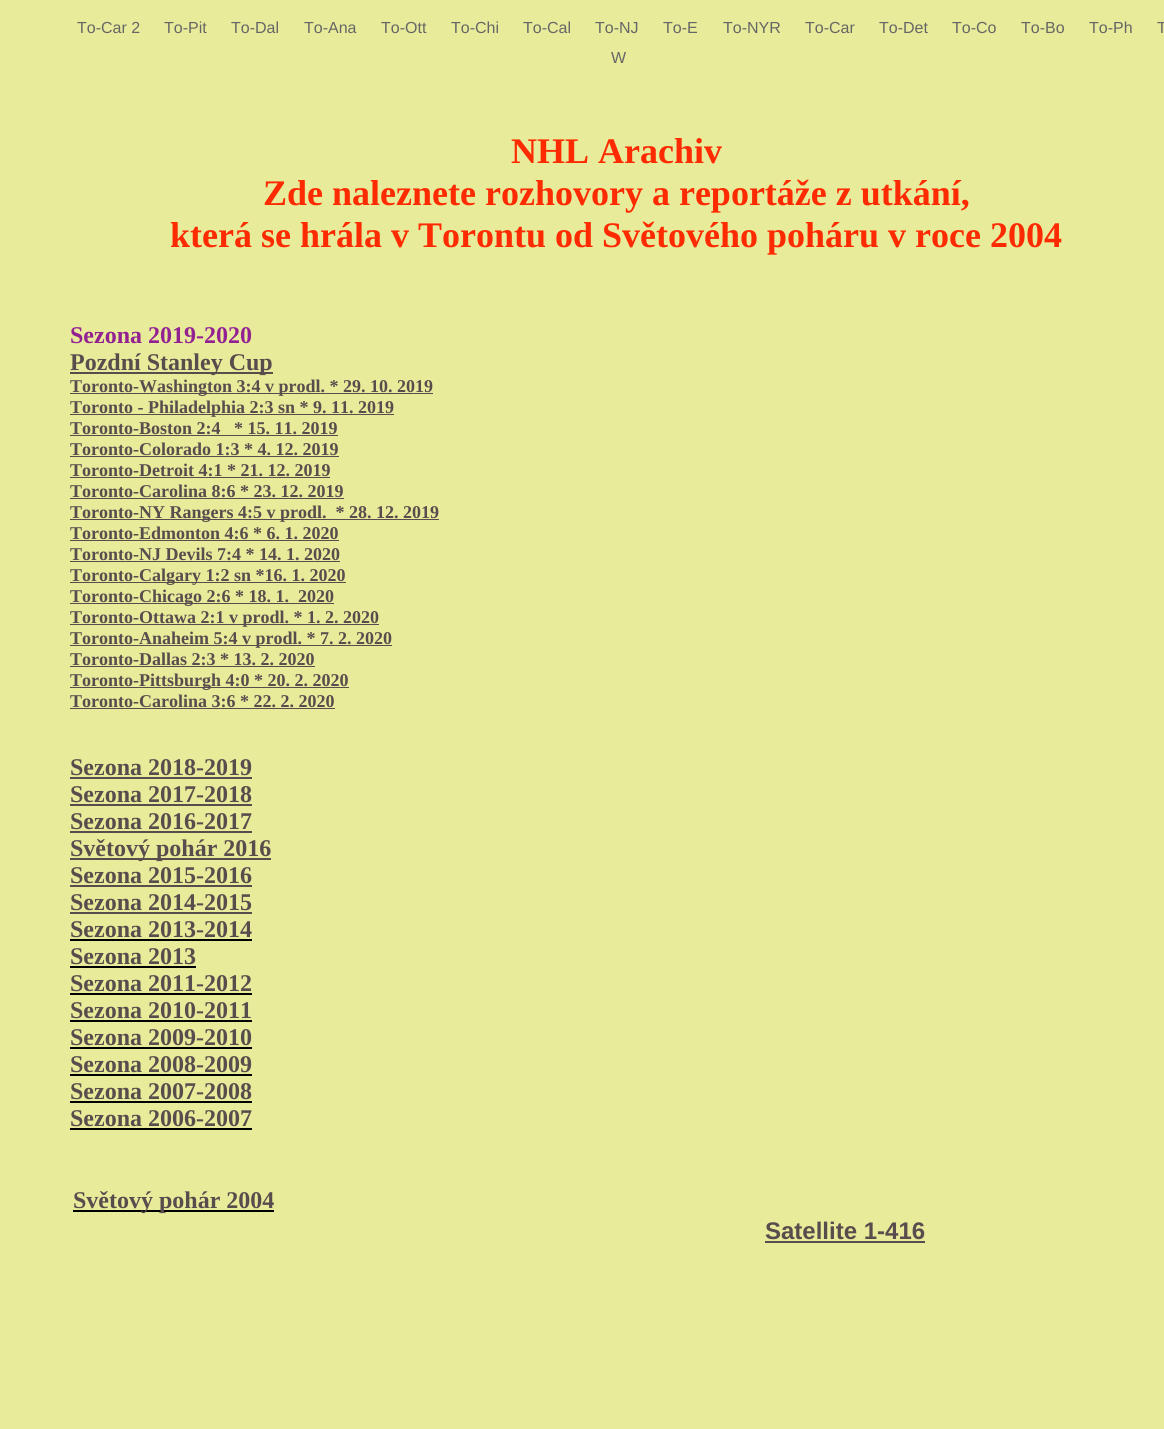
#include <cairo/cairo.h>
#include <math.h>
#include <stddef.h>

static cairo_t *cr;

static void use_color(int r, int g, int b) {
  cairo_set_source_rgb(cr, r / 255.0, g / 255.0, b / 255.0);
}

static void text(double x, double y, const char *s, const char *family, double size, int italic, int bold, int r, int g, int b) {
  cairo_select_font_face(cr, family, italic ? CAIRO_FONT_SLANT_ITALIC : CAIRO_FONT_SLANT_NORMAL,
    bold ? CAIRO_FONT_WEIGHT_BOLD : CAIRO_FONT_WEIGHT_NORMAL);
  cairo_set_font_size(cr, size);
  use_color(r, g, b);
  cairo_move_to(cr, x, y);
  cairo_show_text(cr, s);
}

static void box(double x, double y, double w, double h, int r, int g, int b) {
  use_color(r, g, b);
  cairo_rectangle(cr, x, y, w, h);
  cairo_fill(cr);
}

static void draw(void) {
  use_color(232, 235, 154);
  cairo_paint(cr);
  box(70, 372, 203, 2, 88, 77, 77);
  box(70, 393, 363, 1, 88, 77, 77);
  box(70, 414, 324, 1, 88, 77, 77);
  box(70, 435, 268, 1, 88, 77, 77);
  box(70, 456, 269, 1, 88, 77, 77);
  box(70, 477, 260, 1, 88, 77, 77);
  box(70, 498, 274, 1, 88, 77, 77);
  box(70, 519, 369, 1, 88, 77, 77);
  box(70, 540, 269, 1, 88, 77, 77);
  box(70, 561, 270, 1, 88, 77, 77);
  box(70, 582, 276, 1, 88, 77, 77);
  box(70, 603, 264, 1, 88, 77, 77);
  box(70, 624, 309, 1, 88, 77, 77);
  box(70, 645, 322, 1, 88, 77, 77);
  box(70, 666, 245, 1, 88, 77, 77);
  box(70, 687, 279, 1, 88, 77, 77);
  box(70, 708, 265, 1, 88, 77, 77);
  box(70, 777, 182, 2, 88, 77, 77);
  box(70, 804, 182, 2, 88, 77, 77);
  box(70, 831, 182, 2, 88, 77, 77);
  box(70, 858, 201, 2, 88, 77, 77);
  box(70, 885, 182, 2, 88, 77, 77);
  box(70, 912, 182, 2, 88, 77, 77);
  box(70, 939, 182, 2, 0, 0, 0);
  box(70, 966, 126, 2, 0, 0, 0);
  box(70, 993, 182, 2, 0, 0, 0);
  box(70, 1020, 182, 2, 0, 0, 0);
  box(70, 1047, 182, 2, 0, 0, 0);
  box(70, 1074, 182, 2, 0, 0, 0);
  box(70, 1101, 182, 2, 0, 0, 0);
  box(70, 1128, 182, 2, 0, 0, 0);
  box(73, 1210, 201, 2, 0, 0, 0);
  box(765, 1241, 160, 2, 88, 77, 77);
  text(77, 33, "To-Car 2", "Liberation Sans", 16, 0, 0, 102, 102, 102);
  text(164, 33, "To-Pit", "Liberation Sans", 16, 0, 0, 102, 102, 102);
  text(231, 33, "To-Dal", "Liberation Sans", 16, 0, 0, 102, 102, 102);
  text(304, 33, "To-Ana", "Liberation Sans", 16, 0, 0, 102, 102, 102);
  text(381, 33, "To-Ott", "Liberation Sans", 16, 0, 0, 102, 102, 102);
  text(451, 33, "To-Chi", "Liberation Sans", 16, 0, 0, 102, 102, 102);
  text(523, 33, "To-Cal", "Liberation Sans", 16, 0, 0, 102, 102, 102);
  text(595, 33, "To-NJ", "Liberation Sans", 16, 0, 0, 102, 102, 102);
  text(663, 33, "To-E", "Liberation Sans", 16, 0, 0, 102, 102, 102);
  text(723, 33, "To-NYR", "Liberation Sans", 16, 0, 0, 102, 102, 102);
  text(805, 33, "To-Car", "Liberation Sans", 16, 0, 0, 102, 102, 102);
  text(879, 33, "To-Det", "Liberation Sans", 16, 0, 0, 102, 102, 102);
  text(952, 33, "To-Co", "Liberation Sans", 16, 0, 0, 102, 102, 102);
  text(1021, 33, "To-Bo", "Liberation Sans", 16, 0, 0, 102, 102, 102);
  text(1089, 33, "To-Ph", "Liberation Sans", 16, 0, 0, 102, 102, 102);
  text(1157, 33, "T", "Liberation Sans", 16, 0, 0, 102, 102, 102);
  text(611, 63, "W", "Liberation Sans", 16, 0, 0, 102, 102, 102);
  text(511, 163, "NHL Arachiv", "Liberation Serif", 36, 0, 1, 254, 42, 2);
  text(263, 205, "Zde naleznete rozhovory a reportáže z utkání,", "Liberation Serif", 36, 0, 1, 254, 42, 2);
  text(170, 247, "která se hrála v Torontu od Světového poháru v roce 2004", "Liberation Serif", 36, 0, 1, 254, 42, 2);
  text(70, 343, "Sezona 2019-2020", "Liberation Serif", 24, 0, 1, 148, 33, 146);
  text(70, 370, "Pozdní Stanley Cup", "Liberation Serif", 24, 0, 1, 88, 77, 77);
  text(70, 392, "Toronto-Washington 3:4 v prodl. * 29. 10. 2019", "Liberation Serif", 18, 0, 1, 88, 77, 77);
  text(70, 413, "Toronto - Philadelphia 2:3 sn * 9. 11. 2019", "Liberation Serif", 18, 0, 1, 88, 77, 77);
  text(70, 434, "Toronto-Boston 2:4   * 15. 11. 2019", "Liberation Serif", 18, 0, 1, 88, 77, 77);
  text(70, 455, "Toronto-Colorado 1:3 * 4. 12. 2019", "Liberation Serif", 18, 0, 1, 88, 77, 77);
  text(70, 476, "Toronto-Detroit 4:1 * 21. 12. 2019", "Liberation Serif", 18, 0, 1, 88, 77, 77);
  text(70, 497, "Toronto-Carolina 8:6 * 23. 12. 2019", "Liberation Serif", 18, 0, 1, 88, 77, 77);
  text(70, 518, "Toronto-NY Rangers 4:5 v prodl.  * 28. 12. 2019", "Liberation Serif", 18, 0, 1, 88, 77, 77);
  text(70, 539, "Toronto-Edmonton 4:6 * 6. 1. 2020", "Liberation Serif", 18, 0, 1, 88, 77, 77);
  text(70, 560, "Toronto-NJ Devils 7:4 * 14. 1. 2020", "Liberation Serif", 18, 0, 1, 88, 77, 77);
  text(70, 581, "Toronto-Calgary 1:2 sn *16. 1. 2020", "Liberation Serif", 18, 0, 1, 88, 77, 77);
  text(70, 602, "Toronto-Chicago 2:6 * 18. 1.  2020", "Liberation Serif", 18, 0, 1, 88, 77, 77);
  text(70, 623, "Toronto-Ottawa 2:1 v prodl. * 1. 2. 2020", "Liberation Serif", 18, 0, 1, 88, 77, 77);
  text(70, 644, "Toronto-Anaheim 5:4 v prodl. * 7. 2. 2020", "Liberation Serif", 18, 0, 1, 88, 77, 77);
  text(70, 665, "Toronto-Dallas 2:3 * 13. 2. 2020", "Liberation Serif", 18, 0, 1, 88, 77, 77);
  text(70, 686, "Toronto-Pittsburgh 4:0 * 20. 2. 2020", "Liberation Serif", 18, 0, 1, 88, 77, 77);
  text(70, 707, "Toronto-Carolina 3:6 * 22. 2. 2020", "Liberation Serif", 18, 0, 1, 88, 77, 77);
  text(70, 775, "Sezona 2018-2019", "Liberation Serif", 24, 0, 1, 88, 77, 77);
  text(70, 802, "Sezona 2017-2018", "Liberation Serif", 24, 0, 1, 88, 77, 77);
  text(70, 829, "Sezona 2016-2017", "Liberation Serif", 24, 0, 1, 88, 77, 77);
  text(70, 856, "Světový pohár 2016", "Liberation Serif", 24, 0, 1, 88, 77, 77);
  text(70, 883, "Sezona 2015-2016", "Liberation Serif", 24, 0, 1, 88, 77, 77);
  text(70, 910, "Sezona 2014-2015", "Liberation Serif", 24, 0, 1, 88, 77, 77);
  text(70, 937, "Sezona 2013-2014", "Liberation Serif", 24, 0, 1, 88, 77, 77);
  text(70, 964, "Sezona 2013", "Liberation Serif", 24, 0, 1, 88, 77, 77);
  text(70, 991, "Sezona 2011-2012", "Liberation Serif", 24, 0, 1, 88, 77, 77);
  text(70, 1018, "Sezona 2010-2011", "Liberation Serif", 24, 0, 1, 88, 77, 77);
  text(70, 1045, "Sezona 2009-2010", "Liberation Serif", 24, 0, 1, 88, 77, 77);
  text(70, 1072, "Sezona 2008-2009", "Liberation Serif", 24, 0, 1, 88, 77, 77);
  text(70, 1099, "Sezona 2007-2008", "Liberation Serif", 24, 0, 1, 88, 77, 77);
  text(70, 1126, "Sezona 2006-2007", "Liberation Serif", 24, 0, 1, 88, 77, 77);
  text(73, 1208, "Světový pohár 2004", "Liberation Serif", 24, 0, 1, 88, 77, 77);
  text(765, 1239, "Satellite 1-416", "Liberation Sans", 24, 0, 1, 88, 77, 77);
}

int main(void) {
  cairo_surface_t *surface = cairo_image_surface_create(CAIRO_FORMAT_RGB24, 1164, 1429);
  cr = cairo_create(surface);
  cairo_font_options_t *options = cairo_font_options_create();
  cairo_font_options_set_hint_metrics(options, CAIRO_HINT_METRICS_OFF);
  cairo_font_options_set_hint_style(options, CAIRO_HINT_STYLE_NONE);
  cairo_set_font_options(cr, options);
  cairo_set_miter_limit(cr, 4);
  draw();
  cairo_surface_write_to_png(surface, "out.png");
  cairo_font_options_destroy(options);
  cairo_destroy(cr);
  cairo_surface_destroy(surface);
  return 0;
}
